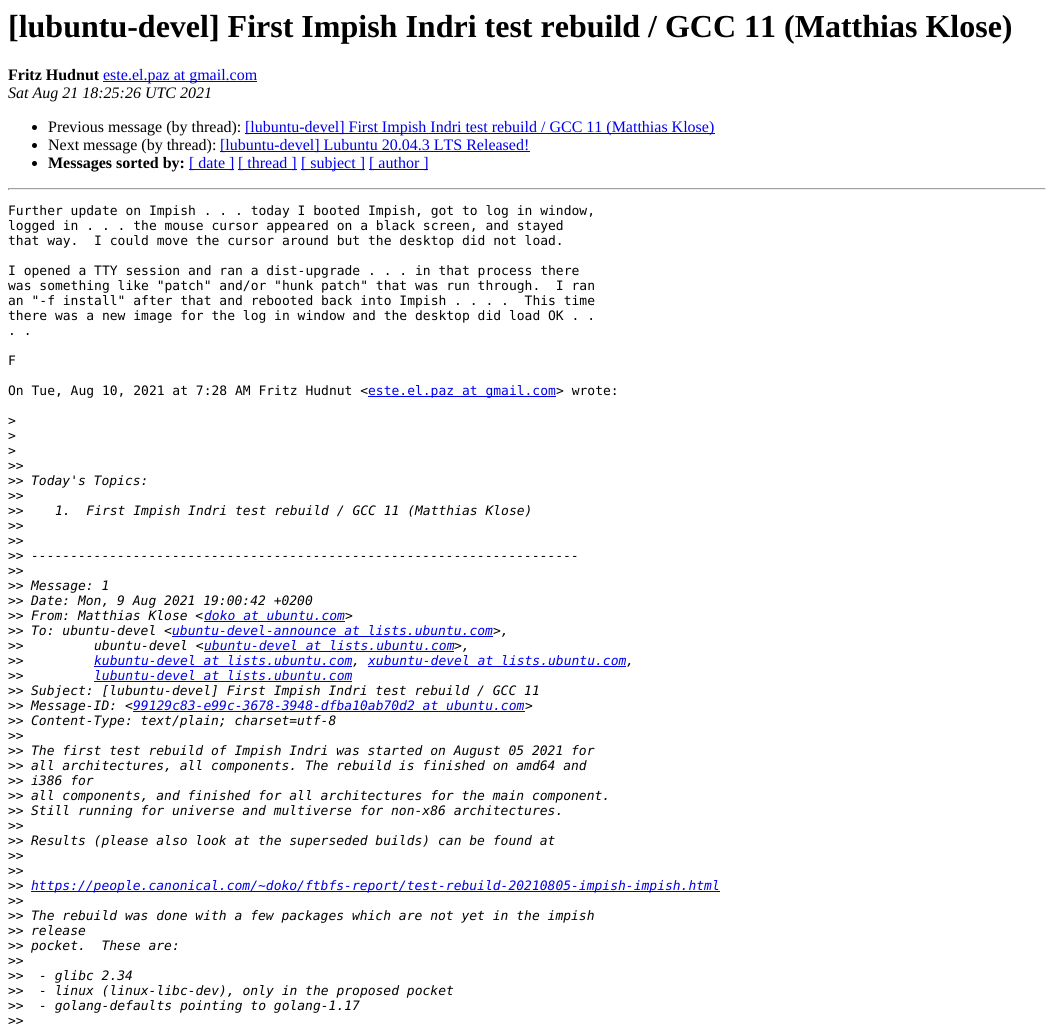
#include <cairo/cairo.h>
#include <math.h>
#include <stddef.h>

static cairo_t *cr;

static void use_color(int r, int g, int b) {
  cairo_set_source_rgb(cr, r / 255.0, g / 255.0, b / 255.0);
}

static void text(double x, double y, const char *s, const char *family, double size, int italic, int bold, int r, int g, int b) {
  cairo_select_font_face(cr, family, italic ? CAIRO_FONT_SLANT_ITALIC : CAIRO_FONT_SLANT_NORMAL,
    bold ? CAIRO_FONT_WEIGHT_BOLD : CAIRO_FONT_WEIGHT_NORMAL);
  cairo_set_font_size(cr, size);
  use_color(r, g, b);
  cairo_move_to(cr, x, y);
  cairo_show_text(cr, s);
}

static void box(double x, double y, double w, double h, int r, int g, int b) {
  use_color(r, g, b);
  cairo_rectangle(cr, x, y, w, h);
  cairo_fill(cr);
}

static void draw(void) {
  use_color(255, 255, 255);
  cairo_paint(cr);
  box(103, 81, 154, 1, 0, 0, 238);
  use_color(0, 0, 0);
  cairo_arc(cr, 34.5, 127.5, 2.5, 0, 2 * M_PI);
  cairo_fill(cr);
  box(245, 133, 470, 1, 0, 0, 238);
  use_color(0, 0, 0);
  cairo_arc(cr, 34.5, 145.5, 2.5, 0, 2 * M_PI);
  cairo_fill(cr);
  box(220, 151, 310, 1, 0, 0, 238);
  use_color(0, 0, 0);
  cairo_arc(cr, 34.5, 163.5, 2.5, 0, 2 * M_PI);
  cairo_fill(cr);
  box(189, 169, 45, 1, 0, 0, 238);
  box(238, 169, 59, 1, 0, 0, 238);
  box(301, 169, 64, 1, 0, 0, 238);
  box(369, 169, 59, 1, 0, 0, 238);
  box(8, 188, 1038, 1, 159, 159, 159);
  box(1045, 188, 1, 2, 238, 238, 238);
  box(8, 189, 1038, 1, 238, 238, 238);
  box(8, 188, 1, 2, 159, 159, 159);
  box(368, 396, 188, 1, 0, 0, 238);
  box(204, 621, 141, 1, 0, 0, 238);
  box(172, 636, 321, 1, 0, 0, 238);
  box(204, 651, 250, 1, 0, 0, 238);
  box(94, 666, 258, 1, 0, 0, 238);
  box(368, 666, 258, 1, 0, 0, 238);
  box(94, 681, 258, 1, 0, 0, 238);
  box(133, 711, 392, 1, 0, 0, 238);
  box(31, 891, 689, 1, 0, 0, 238);
  text(8, 37, "[lubuntu-devel] First Impish Indri test rebuild / GCC 11 (Matthias Klose)", "Liberation Serif", 32, 0, 1, 0, 0, 0);
  text(8, 80, "Fritz Hudnut", "Liberation Serif", 16, 0, 1, 0, 0, 0);
  text(103, 80, "este.el.paz at gmail.com", "Liberation Serif", 16, 0, 0, 0, 0, 238);
  text(8, 98, "Sat Aug 21 18:25:26 UTC 2021", "Liberation Serif", 16, 1, 0, 0, 0, 0);
  text(48, 132, "Previous message (by thread):", "Liberation Serif", 16, 0, 0, 0, 0, 0);
  text(245, 132, "[lubuntu-devel] First Impish Indri test rebuild / GCC 11 (Matthias Klose)", "Liberation Serif", 16, 0, 0, 0, 0, 238);
  text(48, 150, "Next message (by thread):", "Liberation Serif", 16, 0, 0, 0, 0, 0);
  text(220, 150, "[lubuntu-devel] Lubuntu 20.04.3 LTS Released!", "Liberation Serif", 16, 0, 0, 0, 0, 238);
  text(48, 168, "Messages sorted by:", "Liberation Serif", 16, 0, 1, 0, 0, 0);
  text(189, 168, "[ date ]", "Liberation Serif", 16, 0, 0, 0, 0, 238);
  text(238, 168, "[ thread ]", "Liberation Serif", 16, 0, 0, 0, 0, 238);
  text(301, 168, "[ subject ]", "Liberation Serif", 16, 0, 0, 0, 0, 238);
  text(369, 168, "[ author ]", "Liberation Serif", 16, 0, 0, 0, 0, 238);
  text(8, 215, "Further update on Impish . . . today I booted Impish, got to log in window,", "DejaVu Sans Mono", 13, 0, 0, 0, 0, 0);
  text(8, 230, "logged in . . . the mouse cursor appeared on a black screen, and stayed", "DejaVu Sans Mono", 13, 0, 0, 0, 0, 0);
  text(8, 245, "that way.  I could move the cursor around but the desktop did not load.", "DejaVu Sans Mono", 13, 0, 0, 0, 0, 0);
  text(8, 275, "I opened a TTY session and ran a dist-upgrade . . . in that process there", "DejaVu Sans Mono", 13, 0, 0, 0, 0, 0);
  text(8, 290, "was something like \"patch\" and/or \"hunk patch\" that was run through.  I ran", "DejaVu Sans Mono", 13, 0, 0, 0, 0, 0);
  text(8, 305, "an \"-f install\" after that and rebooted back into Impish . . . .  This time", "DejaVu Sans Mono", 13, 0, 0, 0, 0, 0);
  text(8, 320, "there was a new image for the log in window and the desktop did load OK . .", "DejaVu Sans Mono", 13, 0, 0, 0, 0, 0);
  text(8, 335, ". .", "DejaVu Sans Mono", 13, 0, 0, 0, 0, 0);
  text(8, 365, "F", "DejaVu Sans Mono", 13, 0, 0, 0, 0, 0);
  text(8, 395, "On Tue, Aug 10, 2021 at 7:28 AM Fritz Hudnut <", "DejaVu Sans Mono", 13, 0, 0, 0, 0, 0);
  text(368, 395, "este.el.paz at gmail.com", "DejaVu Sans Mono", 13, 0, 0, 0, 0, 238);
  text(556, 395, "> wrote:", "DejaVu Sans Mono", 13, 0, 0, 0, 0, 0);
  text(8, 425, ">", "DejaVu Sans Mono", 13, 0, 0, 0, 0, 0);
  text(8, 440, ">", "DejaVu Sans Mono", 13, 0, 0, 0, 0, 0);
  text(8, 455, ">", "DejaVu Sans Mono", 13, 0, 0, 0, 0, 0);
  text(8, 470, ">>", "DejaVu Sans Mono", 13, 0, 0, 0, 0, 0);
  text(8, 485, ">>", "DejaVu Sans Mono", 13, 0, 0, 0, 0, 0);
  text(31, 485, "Today's Topics:", "DejaVu Sans Mono", 13, 1, 0, 0, 0, 0);
  text(8, 500, ">>", "DejaVu Sans Mono", 13, 0, 0, 0, 0, 0);
  text(8, 515, ">>", "DejaVu Sans Mono", 13, 0, 0, 0, 0, 0);
  text(55, 515, "1.  First Impish Indri test rebuild / GCC 11 (Matthias Klose)", "DejaVu Sans Mono", 13, 1, 0, 0, 0, 0);
  text(8, 530, ">>", "DejaVu Sans Mono", 13, 0, 0, 0, 0, 0);
  text(8, 545, ">>", "DejaVu Sans Mono", 13, 0, 0, 0, 0, 0);
  text(8, 560, ">>", "DejaVu Sans Mono", 13, 0, 0, 0, 0, 0);
  text(31, 560, "----------------------------------------------------------------------", "DejaVu Sans Mono", 13, 1, 0, 0, 0, 0);
  text(8, 575, ">>", "DejaVu Sans Mono", 13, 0, 0, 0, 0, 0);
  text(8, 590, ">>", "DejaVu Sans Mono", 13, 0, 0, 0, 0, 0);
  text(31, 590, "Message: 1", "DejaVu Sans Mono", 13, 1, 0, 0, 0, 0);
  text(8, 605, ">>", "DejaVu Sans Mono", 13, 0, 0, 0, 0, 0);
  text(31, 605, "Date: Mon, 9 Aug 2021 19:00:42 +0200", "DejaVu Sans Mono", 13, 1, 0, 0, 0, 0);
  text(8, 620, ">>", "DejaVu Sans Mono", 13, 0, 0, 0, 0, 0);
  text(31, 620, "From: Matthias Klose <", "DejaVu Sans Mono", 13, 1, 0, 0, 0, 0);
  text(204, 620, "doko at ubuntu.com", "DejaVu Sans Mono", 13, 1, 0, 0, 0, 238);
  text(345, 620, ">", "DejaVu Sans Mono", 13, 1, 0, 0, 0, 0);
  text(8, 635, ">>", "DejaVu Sans Mono", 13, 0, 0, 0, 0, 0);
  text(31, 635, "To: ubuntu-devel <", "DejaVu Sans Mono", 13, 1, 0, 0, 0, 0);
  text(172, 635, "ubuntu-devel-announce at lists.ubuntu.com", "DejaVu Sans Mono", 13, 1, 0, 0, 0, 238);
  text(493, 635, ">,", "DejaVu Sans Mono", 13, 1, 0, 0, 0, 0);
  text(8, 650, ">>", "DejaVu Sans Mono", 13, 0, 0, 0, 0, 0);
  text(94, 650, "ubuntu-devel <", "DejaVu Sans Mono", 13, 1, 0, 0, 0, 0);
  text(204, 650, "ubuntu-devel at lists.ubuntu.com", "DejaVu Sans Mono", 13, 1, 0, 0, 0, 238);
  text(454, 650, ">,", "DejaVu Sans Mono", 13, 1, 0, 0, 0, 0);
  text(8, 665, ">>", "DejaVu Sans Mono", 13, 0, 0, 0, 0, 0);
  text(94, 665, "kubuntu-devel at lists.ubuntu.com", "DejaVu Sans Mono", 13, 1, 0, 0, 0, 238);
  text(352, 665, ",", "DejaVu Sans Mono", 13, 1, 0, 0, 0, 0);
  text(368, 665, "xubuntu-devel at lists.ubuntu.com", "DejaVu Sans Mono", 13, 1, 0, 0, 0, 238);
  text(626, 665, ",", "DejaVu Sans Mono", 13, 1, 0, 0, 0, 0);
  text(8, 680, ">>", "DejaVu Sans Mono", 13, 0, 0, 0, 0, 0);
  text(94, 680, "lubuntu-devel at lists.ubuntu.com", "DejaVu Sans Mono", 13, 1, 0, 0, 0, 238);
  text(8, 695, ">>", "DejaVu Sans Mono", 13, 0, 0, 0, 0, 0);
  text(31, 695, "Subject: [lubuntu-devel] First Impish Indri test rebuild / GCC 11", "DejaVu Sans Mono", 13, 1, 0, 0, 0, 0);
  text(8, 710, ">>", "DejaVu Sans Mono", 13, 0, 0, 0, 0, 0);
  text(31, 710, "Message-ID: <", "DejaVu Sans Mono", 13, 1, 0, 0, 0, 0);
  text(133, 710, "99129c83-e99c-3678-3948-dfba10ab70d2 at ubuntu.com", "DejaVu Sans Mono", 13, 1, 0, 0, 0, 238);
  text(525, 710, ">", "DejaVu Sans Mono", 13, 1, 0, 0, 0, 0);
  text(8, 725, ">>", "DejaVu Sans Mono", 13, 0, 0, 0, 0, 0);
  text(31, 725, "Content-Type: text/plain; charset=utf-8", "DejaVu Sans Mono", 13, 1, 0, 0, 0, 0);
  text(8, 740, ">>", "DejaVu Sans Mono", 13, 0, 0, 0, 0, 0);
  text(8, 755, ">>", "DejaVu Sans Mono", 13, 0, 0, 0, 0, 0);
  text(31, 755, "The first test rebuild of Impish Indri was started on August 05 2021 for", "DejaVu Sans Mono", 13, 1, 0, 0, 0, 0);
  text(8, 770, ">>", "DejaVu Sans Mono", 13, 0, 0, 0, 0, 0);
  text(31, 770, "all architectures, all components. The rebuild is finished on amd64 and", "DejaVu Sans Mono", 13, 1, 0, 0, 0, 0);
  text(8, 785, ">>", "DejaVu Sans Mono", 13, 0, 0, 0, 0, 0);
  text(31, 785, "i386 for", "DejaVu Sans Mono", 13, 1, 0, 0, 0, 0);
  text(8, 800, ">>", "DejaVu Sans Mono", 13, 0, 0, 0, 0, 0);
  text(31, 800, "all components, and finished for all architectures for the main component.", "DejaVu Sans Mono", 13, 1, 0, 0, 0, 0);
  text(8, 815, ">>", "DejaVu Sans Mono", 13, 0, 0, 0, 0, 0);
  text(31, 815, "Still running for universe and multiverse for non-x86 architectures.", "DejaVu Sans Mono", 13, 1, 0, 0, 0, 0);
  text(8, 830, ">>", "DejaVu Sans Mono", 13, 0, 0, 0, 0, 0);
  text(8, 845, ">>", "DejaVu Sans Mono", 13, 0, 0, 0, 0, 0);
  text(31, 845, "Results (please also look at the superseded builds) can be found at", "DejaVu Sans Mono", 13, 1, 0, 0, 0, 0);
  text(8, 860, ">>", "DejaVu Sans Mono", 13, 0, 0, 0, 0, 0);
  text(8, 875, ">>", "DejaVu Sans Mono", 13, 0, 0, 0, 0, 0);
  text(8, 890, ">>", "DejaVu Sans Mono", 13, 0, 0, 0, 0, 0);
  text(31, 890, "https://people.canonical.com/~doko/ftbfs-report/test-rebuild-20210805-impish-impish.html", "DejaVu Sans Mono", 13, 1, 0, 0, 0, 238);
  text(8, 905, ">>", "DejaVu Sans Mono", 13, 0, 0, 0, 0, 0);
  text(8, 920, ">>", "DejaVu Sans Mono", 13, 0, 0, 0, 0, 0);
  text(31, 920, "The rebuild was done with a few packages which are not yet in the impish", "DejaVu Sans Mono", 13, 1, 0, 0, 0, 0);
  text(8, 935, ">>", "DejaVu Sans Mono", 13, 0, 0, 0, 0, 0);
  text(31, 935, "release", "DejaVu Sans Mono", 13, 1, 0, 0, 0, 0);
  text(8, 950, ">>", "DejaVu Sans Mono", 13, 0, 0, 0, 0, 0);
  text(31, 950, "pocket.  These are:", "DejaVu Sans Mono", 13, 1, 0, 0, 0, 0);
  text(8, 965, ">>", "DejaVu Sans Mono", 13, 0, 0, 0, 0, 0);
  text(8, 980, ">>", "DejaVu Sans Mono", 13, 0, 0, 0, 0, 0);
  text(39, 980, "- glibc 2.34", "DejaVu Sans Mono", 13, 1, 0, 0, 0, 0);
  text(8, 995, ">>", "DejaVu Sans Mono", 13, 0, 0, 0, 0, 0);
  text(39, 995, "- linux (linux-libc-dev), only in the proposed pocket", "DejaVu Sans Mono", 13, 1, 0, 0, 0, 0);
  text(8, 1010, ">>", "DejaVu Sans Mono", 13, 0, 0, 0, 0, 0);
  text(39, 1010, "- golang-defaults pointing to golang-1.17", "DejaVu Sans Mono", 13, 1, 0, 0, 0, 0);
  text(8, 1025, ">>", "DejaVu Sans Mono", 13, 0, 0, 0, 0, 0);
}

int main(void) {
  cairo_surface_t *surface = cairo_image_surface_create(CAIRO_FORMAT_RGB24, 1054, 1029);
  cr = cairo_create(surface);
  cairo_font_options_t *options = cairo_font_options_create();
  cairo_font_options_set_hint_metrics(options, CAIRO_HINT_METRICS_OFF);
  cairo_font_options_set_hint_style(options, CAIRO_HINT_STYLE_NONE);
  cairo_set_font_options(cr, options);
  cairo_set_miter_limit(cr, 4);
  draw();
  cairo_surface_write_to_png(surface, "out.png");
  cairo_font_options_destroy(options);
  cairo_destroy(cr);
  cairo_surface_destroy(surface);
  return 0;
}
